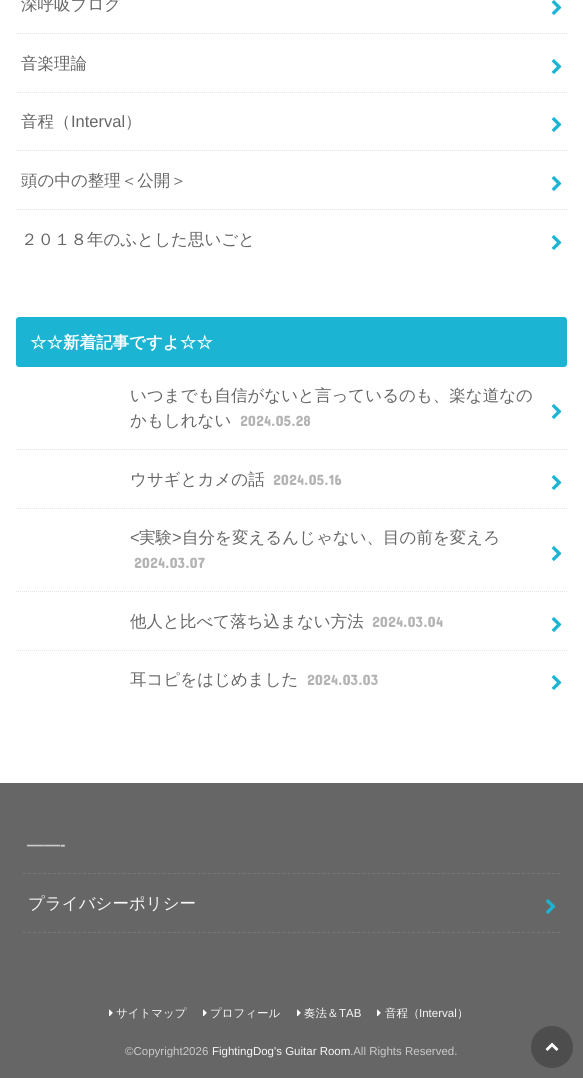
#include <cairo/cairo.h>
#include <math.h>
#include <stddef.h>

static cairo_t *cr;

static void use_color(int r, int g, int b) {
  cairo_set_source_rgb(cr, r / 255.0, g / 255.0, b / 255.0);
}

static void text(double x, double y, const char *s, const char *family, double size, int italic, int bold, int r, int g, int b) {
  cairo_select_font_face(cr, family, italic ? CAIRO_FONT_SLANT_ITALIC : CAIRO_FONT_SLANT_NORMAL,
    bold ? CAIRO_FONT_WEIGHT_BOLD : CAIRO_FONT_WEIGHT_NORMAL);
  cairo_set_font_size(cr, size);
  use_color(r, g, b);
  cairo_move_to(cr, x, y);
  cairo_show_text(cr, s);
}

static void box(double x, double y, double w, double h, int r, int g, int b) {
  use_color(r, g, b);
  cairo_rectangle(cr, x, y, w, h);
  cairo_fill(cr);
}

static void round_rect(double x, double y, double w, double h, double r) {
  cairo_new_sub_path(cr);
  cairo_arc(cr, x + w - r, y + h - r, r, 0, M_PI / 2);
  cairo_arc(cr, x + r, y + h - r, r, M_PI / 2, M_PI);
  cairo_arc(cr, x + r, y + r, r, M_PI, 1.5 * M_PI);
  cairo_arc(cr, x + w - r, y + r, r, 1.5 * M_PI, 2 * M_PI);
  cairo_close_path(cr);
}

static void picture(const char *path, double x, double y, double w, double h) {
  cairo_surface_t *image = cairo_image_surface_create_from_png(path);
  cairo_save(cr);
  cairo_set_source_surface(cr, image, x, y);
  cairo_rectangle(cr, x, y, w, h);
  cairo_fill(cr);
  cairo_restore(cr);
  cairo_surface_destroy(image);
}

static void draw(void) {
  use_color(255, 255, 255);
  cairo_paint(cr);
  cairo_new_path(cr);
  cairo_move_to(cr, 16, 33.5);
  cairo_line_to(cr, 567, 33.5);
  use_color(229, 229, 229);
  cairo_set_line_width(cr, 1);
  cairo_set_dash(cr, (double[]){1, 1}, 2, 0);
  cairo_stroke(cr);
  picture("img_01.png", 551, 0, 11, 15);
  cairo_new_path(cr);
  cairo_move_to(cr, 16, 92.5);
  cairo_line_to(cr, 567, 92.5);
  cairo_stroke(cr);
  picture("img_01.png", 551, 59, 11, 15);
  cairo_new_path(cr);
  cairo_move_to(cr, 16, 150.5);
  cairo_line_to(cr, 567, 150.5);
  cairo_stroke(cr);
  picture("img_01.png", 551, 117, 11, 15);
  cairo_new_path(cr);
  cairo_move_to(cr, 16, 209.5);
  cairo_line_to(cr, 567, 209.5);
  cairo_stroke(cr);
  picture("img_01.png", 551, 176, 11, 15);
  picture("img_01.png", 551, 235, 11, 15);
  use_color(27, 180, 211);
  round_rect(16, 317, 551, 50, 3);
  cairo_fill(cr);
  cairo_new_path(cr);
  cairo_move_to(cr, 16, 449.5);
  cairo_line_to(cr, 567, 449.5);
  use_color(229, 229, 229);
  cairo_stroke(cr);
  picture("img_01.png", 551, 404, 11, 15);
  cairo_new_path(cr);
  cairo_move_to(cr, 16, 508.5);
  cairo_line_to(cr, 567, 508.5);
  cairo_stroke(cr);
  picture("img_01.png", 551, 475, 11, 15);
  cairo_new_path(cr);
  cairo_move_to(cr, 16, 591.5);
  cairo_line_to(cr, 567, 591.5);
  cairo_stroke(cr);
  picture("img_01.png", 551, 546, 11, 15);
  cairo_new_path(cr);
  cairo_move_to(cr, 16, 650.5);
  cairo_line_to(cr, 567, 650.5);
  cairo_stroke(cr);
  picture("img_01.png", 551, 617, 11, 15);
  picture("img_01.png", 551, 675, 11, 15);
  box(0, 783, 583, 295, 102, 102, 102);
  cairo_new_path(cr);
  cairo_move_to(cr, 23, 873.5);
  cairo_line_to(cr, 560, 873.5);
  use_color(119, 119, 119);
  cairo_set_dash(cr, (double[]){3, 1.99}, 2, 0);
  cairo_stroke(cr);
  cairo_new_path(cr);
  cairo_move_to(cr, 23, 932.5);
  cairo_line_to(cr, 560, 932.5);
  cairo_stroke(cr);
  picture("img_02.png", 545, 899, 11, 15);
  picture("img_03.png", 109, 1009, 4, 8);
  picture("img_03.png", 203, 1009, 4, 8);
  picture("img_03.png", 297, 1009, 4, 8);
  picture("img_03.png", 377, 1009, 4, 8);
  use_color(77, 77, 77);
  cairo_arc(cr, 552, 1047, 21, 0, 2 * M_PI);
  cairo_fill(cr);
  picture("img_04.png", 545, 1042, 14, 9);
  text(21, 10, "深呼吸ブログ", "WenQuanYi Zen Hei Medium", 16.5, 0, 0, 102, 102, 102);
  text(21, 69, "音楽理論", "WenQuanYi Zen Hei Medium", 16.5, 0, 0, 102, 102, 102);
  text(21, 127, "音程（", "WenQuanYi Zen Hei Medium", 16.5, 0, 0, 102, 102, 102);
  text(71, 127, "Interval", "Liberation Sans", 16.5, 0, 0, 102, 102, 102);
  text(125, 127, "）", "WenQuanYi Zen Hei Medium", 16.5, 0, 0, 102, 102, 102);
  text(21, 186, "頭の中の整理＜公開＞", "WenQuanYi Zen Hei Medium", 16.5, 0, 0, 102, 102, 102);
  text(21, 245, "２０１８年のふとした思いごと", "WenQuanYi Zen Hei Medium", 16.5, 0, 0, 102, 102, 102);
  text(30, 348, "☆☆新着記事ですよ☆☆", "WenQuanYi Zen Hei", 16.5, 0, 1, 255, 255, 255);
  text(130, 401, "いつまでも自信がないと言っているのも、楽な道なの", "WenQuanYi Zen Hei Medium", 16.5, 0, 0, 102, 102, 102);
  text(130, 426, "かもしれない", "WenQuanYi Zen Hei Medium", 16.5, 0, 0, 102, 102, 102);
  text(240, 426, "2024.05.28", "Concert One", 15, 0, 0, 179, 179, 179);
  text(130, 485, "ウサギとカメの話", "WenQuanYi Zen Hei Medium", 16.5, 0, 0, 102, 102, 102);
  text(273, 485, "2024.05.16", "Concert One", 15, 0, 0, 179, 179, 179);
  text(130, 543, "<", "Liberation Sans", 16.5, 0, 0, 102, 102, 102);
  text(139, 543, "実験", "WenQuanYi Zen Hei Medium", 16.5, 0, 0, 102, 102, 102);
  text(172, 543, ">", "Liberation Sans", 16.5, 0, 0, 102, 102, 102);
  text(182, 543, "自分を変えるんじゃない、目の前を変えろ", "WenQuanYi Zen Hei Medium", 16.5, 0, 0, 102, 102, 102);
  text(134, 568, "2024.03.07", "Concert One", 15, 0, 0, 179, 179, 179);
  text(130, 627, "他人と比べて落ち込まない方法", "WenQuanYi Zen Hei Medium", 16.5, 0, 0, 102, 102, 102);
  text(372, 627, "2024.03.04", "Concert One", 15, 0, 0, 179, 179, 179);
  text(130, 685, "耳コピをはじめました", "WenQuanYi Zen Hei Medium", 16.5, 0, 0, 102, 102, 102);
  text(307, 685, "2024.03.03", "Concert One", 15, 0, 0, 179, 179, 179);
  text(27, 850, "——-", "Liberation Sans", 16.5, 0, 1, 202, 202, 202);
  text(28, 909, "プライバシーポリシー", "WenQuanYi Zen Hei Medium", 16.5, 0, 0, 247, 247, 247);
  text(116, 1017, "サイトマップ", "WenQuanYi Zen Hei Medium", 11.5, 0, 0, 247, 247, 247);
  text(210, 1017, "プロフィール", "WenQuanYi Zen Hei Medium", 11.5, 0, 0, 247, 247, 247);
  text(304, 1017, "奏法＆", "WenQuanYi Zen Hei Medium", 11.5, 0, 0, 247, 247, 247);
  text(339, 1017, "TAB", "Liberation Sans", 11.5, 0, 0, 247, 247, 247);
  text(385, 1017, "音程（", "WenQuanYi Zen Hei Medium", 11.5, 0, 0, 247, 247, 247);
  text(419, 1017, "Interval", "Liberation Sans", 11.5, 0, 0, 247, 247, 247);
  text(457, 1017, "）", "WenQuanYi Zen Hei Medium", 11.5, 0, 0, 247, 247, 247);
  text(125, 1055, "©Copyright2026", "Liberation Sans", 11.5, 0, 0, 202, 202, 202);
  text(212, 1055, "FightingDog's Guitar Room", "Liberation Sans", 11.5, 0, 0, 247, 247, 247);
  text(350, 1055, ".All Rights Reserved.", "Liberation Sans", 11.5, 0, 0, 202, 202, 202);
}

int main(void) {
  cairo_surface_t *surface = cairo_image_surface_create(CAIRO_FORMAT_RGB24, 583, 1078);
  cr = cairo_create(surface);
  cairo_font_options_t *options = cairo_font_options_create();
  cairo_font_options_set_hint_metrics(options, CAIRO_HINT_METRICS_OFF);
  cairo_font_options_set_hint_style(options, CAIRO_HINT_STYLE_NONE);
  cairo_set_font_options(cr, options);
  cairo_set_miter_limit(cr, 4);
  draw();
  cairo_surface_write_to_png(surface, "out.png");
  cairo_font_options_destroy(options);
  cairo_destroy(cr);
  cairo_surface_destroy(surface);
  return 0;
}
